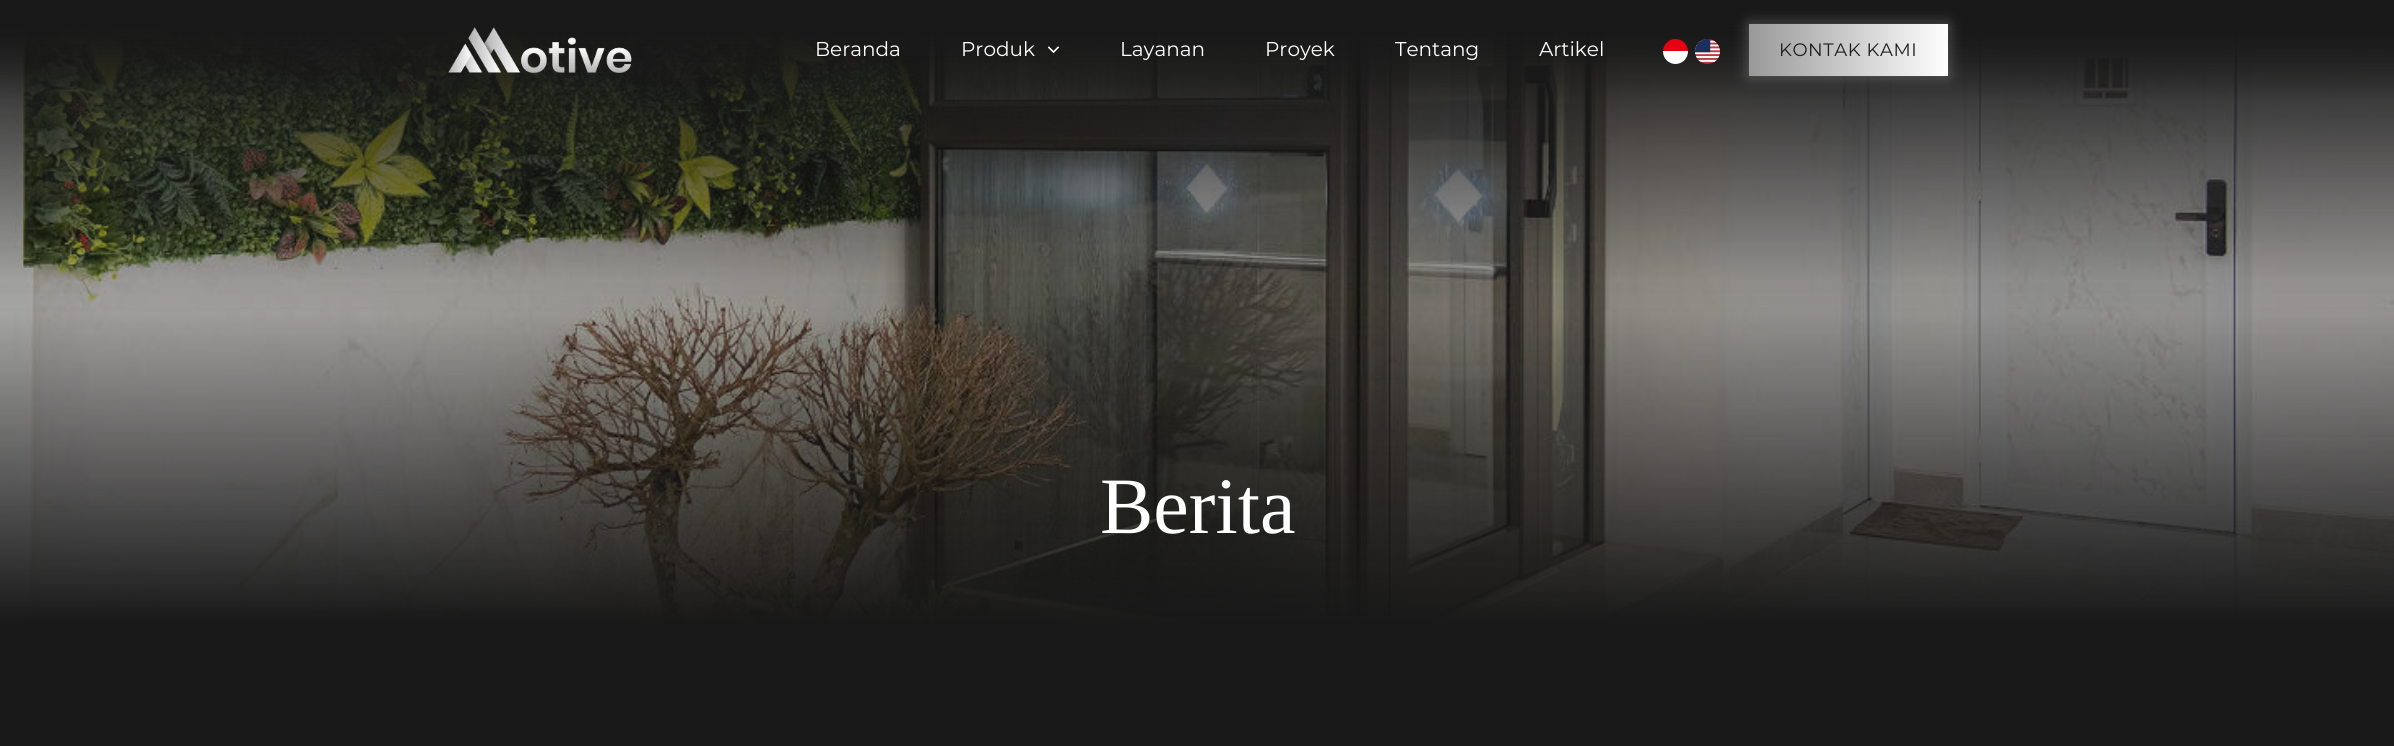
#include <cairo/cairo.h>
#include <math.h>
#include <stddef.h>

static cairo_t *cr;

static void use_color(int r, int g, int b) {
  cairo_set_source_rgb(cr, r / 255.0, g / 255.0, b / 255.0);
}

static void text(double x, double y, const char *s, const char *family, double size, int italic, int bold, int r, int g, int b) {
  cairo_select_font_face(cr, family, italic ? CAIRO_FONT_SLANT_ITALIC : CAIRO_FONT_SLANT_NORMAL,
    bold ? CAIRO_FONT_WEIGHT_BOLD : CAIRO_FONT_WEIGHT_NORMAL);
  cairo_set_font_size(cr, size);
  use_color(r, g, b);
  cairo_move_to(cr, x, y);
  cairo_show_text(cr, s);
}

static void spaced_text(double x, double y, const char *s, double letter, double word) {
  cairo_move_to(cr, x, y);
  while (*s) {
    char ch[5] = {0};
    int n = 0;
    do ch[n++] = *s++; while ((*s & 0xC0) == 0x80);
    cairo_show_text(cr, ch);
    cairo_rel_move_to(cr, letter + word * (*ch == ' '), 0);
  }
}

static void box(double x, double y, double w, double h, int r, int g, int b) {
  use_color(r, g, b);
  cairo_rectangle(cr, x, y, w, h);
  cairo_fill(cr);
}

static void round_rect(double x, double y, double w, double h, double r) {
  cairo_new_sub_path(cr);
  cairo_arc(cr, x + w - r, y + h - r, r, 0, M_PI / 2);
  cairo_arc(cr, x + r, y + h - r, r, M_PI / 2, M_PI);
  cairo_arc(cr, x + r, y + r, r, M_PI, 1.5 * M_PI);
  cairo_arc(cr, x + w - r, y + r, r, 1.5 * M_PI, 2 * M_PI);
  cairo_close_path(cr);
}

static void shadow(double x, double y, double w, double h, double r, double blur, double alpha) {
  cairo_push_group_with_content(cr, CAIRO_CONTENT_ALPHA);
  cairo_set_operator(cr, CAIRO_OPERATOR_SOURCE);
  for (int i = 15; i >= -15 && fmin(w, h) + blur * i / 3 > 0; i -= 2) {
    double e = blur * i / 6;
    cairo_set_source_rgba(cr, 0, 0, 0, alpha * erfc((i - 1) / 8.5) / 2);
    round_rect(x - e, y - e, w + 2 * e, h + 2 * e, fmax(0, fmin(r + e + blur * .6, fmin(w, h) / 2 + e)));
    cairo_fill(cr);
  }
  cairo_pattern_t *soft = cairo_pop_group(cr);
  cairo_mask(cr, soft);
  cairo_pattern_destroy(soft);
}

static void picture(const char *path, double x, double y, double w, double h) {
  cairo_surface_t *image = cairo_image_surface_create_from_png(path);
  cairo_save(cr);
  cairo_set_source_surface(cr, image, x, y);
  cairo_rectangle(cr, x, y, w, h);
  cairo_fill(cr);
  cairo_restore(cr);
  cairo_surface_destroy(image);
}

static void draw(void) {
  cairo_pattern_t *gradient;
  use_color(24, 24, 24);
  cairo_paint(cr);
  picture("img_04.png", 0, 0, 2394, 625);
  picture("img_01.png", 448, 27, 184, 46);
  picture("img_02.png", 1048, 46, 12, 8);
  cairo_save(cr);
  round_rect(1663, 39, 25, 25, 12.5);
  cairo_clip(cr);
  box(1663, 39, 25, 12, 231, 0, 17);
  use_color(255, 255, 255);
  cairo_new_path(cr);
  cairo_move_to(cr, 1663, 51);
  cairo_line_to(cr, 1688, 51);
  cairo_line_to(cr, 1688, 51.5);
  cairo_curve_to(cr, 1688, 58.5, 1682.5, 64, 1675.5, 64);
  cairo_curve_to(cr, 1668.5, 64, 1663, 58.5, 1663, 51.5);
  cairo_close_path(cr);
  cairo_fill(cr);
  cairo_restore(cr);
  picture("img_03.png", 1695, 39, 25, 25);
  use_color(255, 255, 255);
  shadow(1749, 24, 199, 52, 0, 7.5, 0.28);
  gradient = cairo_pattern_create_linear(1948, 50, 1749, 50);
  cairo_pattern_add_color_stop_rgba(gradient, 0, 1, 1, 1, 1);
  cairo_pattern_add_color_stop_rgba(gradient, 1, 0.6, 0.6, 0.6, 1);
  cairo_set_source(cr, gradient);
  cairo_pattern_destroy(gradient);
  cairo_rectangle(cr, 1749, 24, 199, 52);
  cairo_fill(cr);
  text(815, 56, "Beranda", "Montserrat", 20, 0, 0, 255, 255, 255);
  text(961, 56, "Produk", "Montserrat", 20, 0, 0, 255, 255, 255);
  text(1120, 56, "Layanan", "Montserrat", 20, 0, 0, 255, 255, 255);
  text(1265, 56, "Proyek", "Montserrat", 20, 0, 0, 255, 255, 255);
  text(1395, 56, "Tentang", "Montserrat", 20, 0, 0, 255, 255, 255);
  text(1539, 56, "Artikel", "Montserrat", 20, 0, 0, 255, 255, 255);
  cairo_set_font_size(cr, 18);
  use_color(30, 30, 30);
  spaced_text(1779, 56, "KONTAK KAMI", 0.6, 0);
  text(1100, 533, "Berita", "Liberation Serif", 80, 0, 0, 255, 255, 255);
}

int main(void) {
  cairo_surface_t *surface = cairo_image_surface_create(CAIRO_FORMAT_RGB24, 2394, 746);
  cr = cairo_create(surface);
  cairo_font_options_t *options = cairo_font_options_create();
  cairo_font_options_set_hint_metrics(options, CAIRO_HINT_METRICS_OFF);
  cairo_font_options_set_hint_style(options, CAIRO_HINT_STYLE_NONE);
  cairo_set_font_options(cr, options);
  cairo_set_miter_limit(cr, 4);
  draw();
  cairo_surface_write_to_png(surface, "out.png");
  cairo_font_options_destroy(options);
  cairo_destroy(cr);
  cairo_surface_destroy(surface);
  return 0;
}
